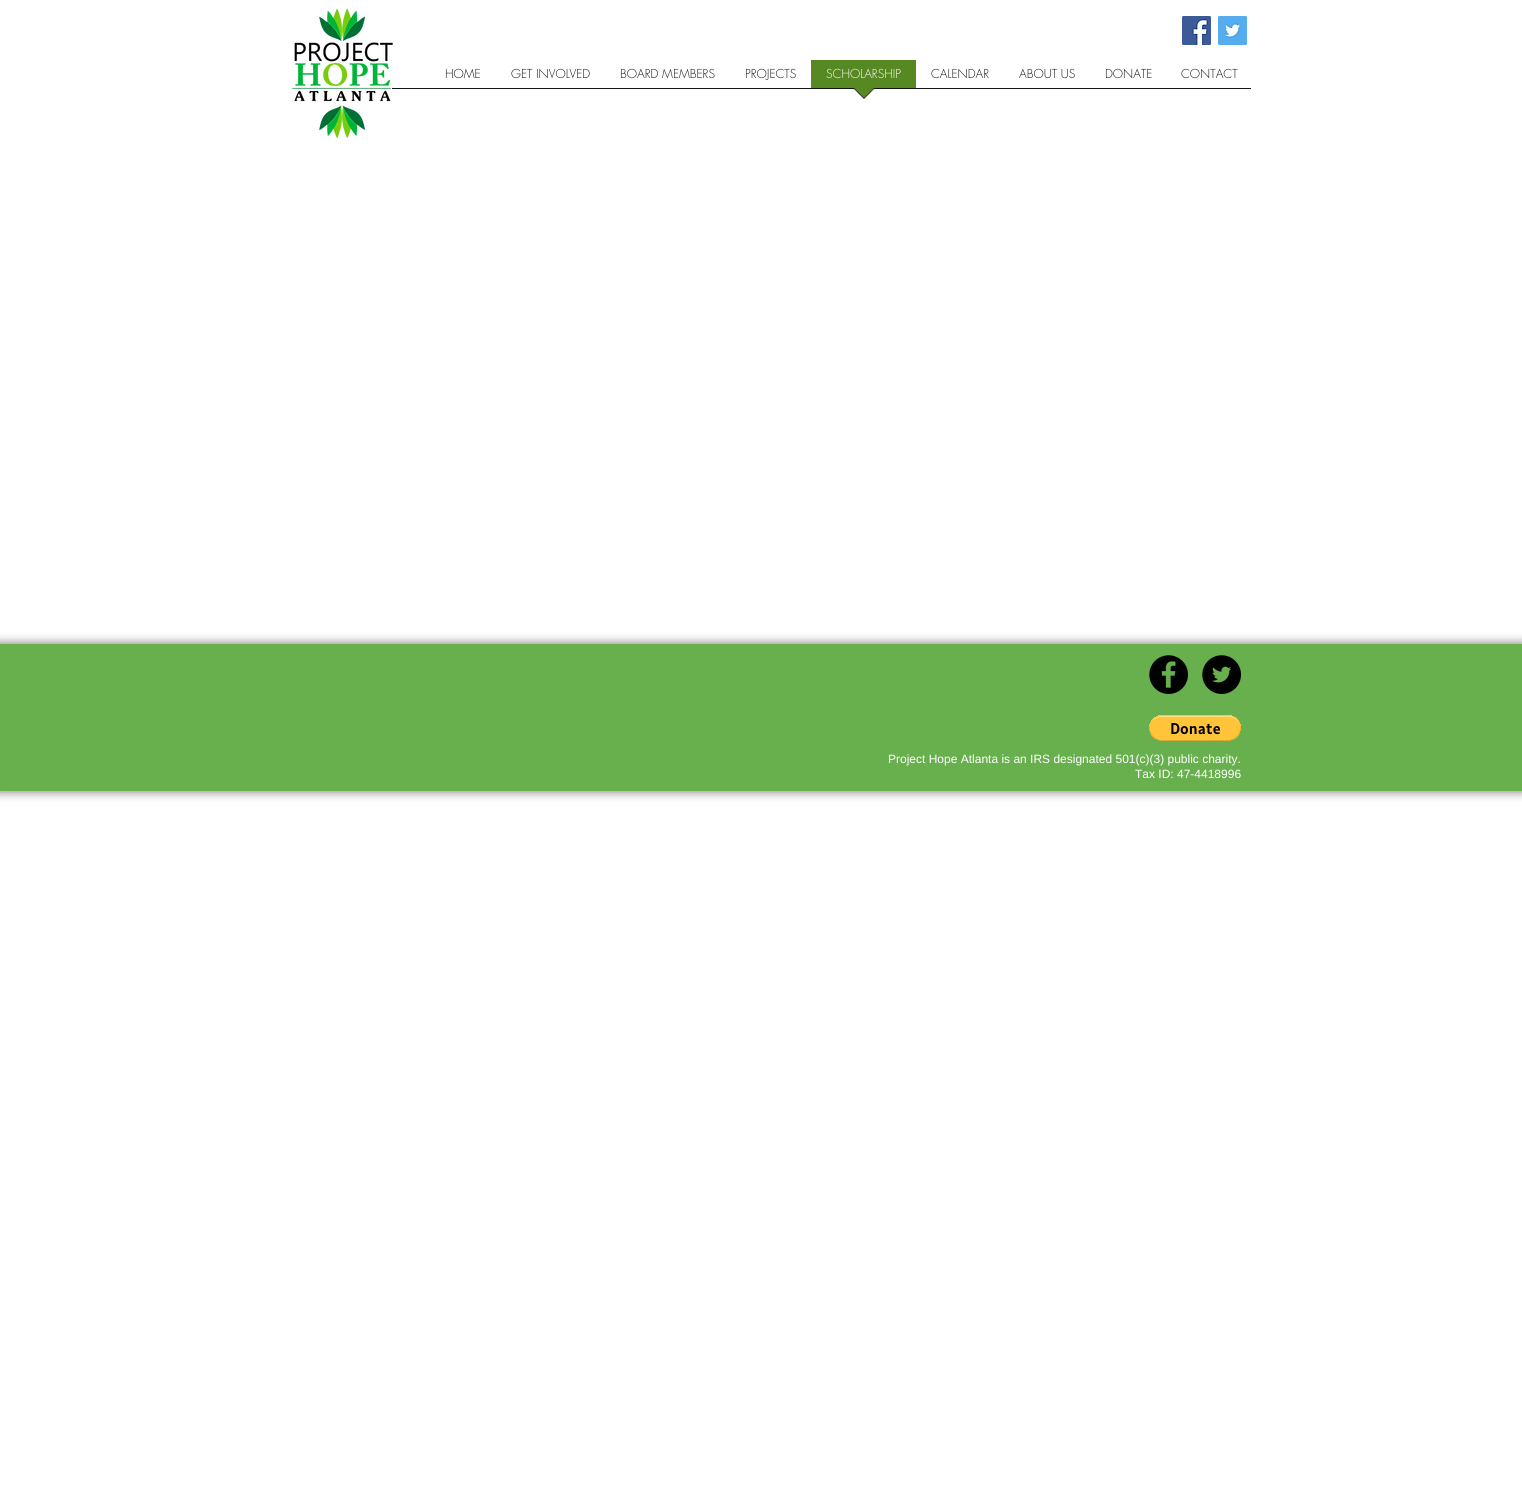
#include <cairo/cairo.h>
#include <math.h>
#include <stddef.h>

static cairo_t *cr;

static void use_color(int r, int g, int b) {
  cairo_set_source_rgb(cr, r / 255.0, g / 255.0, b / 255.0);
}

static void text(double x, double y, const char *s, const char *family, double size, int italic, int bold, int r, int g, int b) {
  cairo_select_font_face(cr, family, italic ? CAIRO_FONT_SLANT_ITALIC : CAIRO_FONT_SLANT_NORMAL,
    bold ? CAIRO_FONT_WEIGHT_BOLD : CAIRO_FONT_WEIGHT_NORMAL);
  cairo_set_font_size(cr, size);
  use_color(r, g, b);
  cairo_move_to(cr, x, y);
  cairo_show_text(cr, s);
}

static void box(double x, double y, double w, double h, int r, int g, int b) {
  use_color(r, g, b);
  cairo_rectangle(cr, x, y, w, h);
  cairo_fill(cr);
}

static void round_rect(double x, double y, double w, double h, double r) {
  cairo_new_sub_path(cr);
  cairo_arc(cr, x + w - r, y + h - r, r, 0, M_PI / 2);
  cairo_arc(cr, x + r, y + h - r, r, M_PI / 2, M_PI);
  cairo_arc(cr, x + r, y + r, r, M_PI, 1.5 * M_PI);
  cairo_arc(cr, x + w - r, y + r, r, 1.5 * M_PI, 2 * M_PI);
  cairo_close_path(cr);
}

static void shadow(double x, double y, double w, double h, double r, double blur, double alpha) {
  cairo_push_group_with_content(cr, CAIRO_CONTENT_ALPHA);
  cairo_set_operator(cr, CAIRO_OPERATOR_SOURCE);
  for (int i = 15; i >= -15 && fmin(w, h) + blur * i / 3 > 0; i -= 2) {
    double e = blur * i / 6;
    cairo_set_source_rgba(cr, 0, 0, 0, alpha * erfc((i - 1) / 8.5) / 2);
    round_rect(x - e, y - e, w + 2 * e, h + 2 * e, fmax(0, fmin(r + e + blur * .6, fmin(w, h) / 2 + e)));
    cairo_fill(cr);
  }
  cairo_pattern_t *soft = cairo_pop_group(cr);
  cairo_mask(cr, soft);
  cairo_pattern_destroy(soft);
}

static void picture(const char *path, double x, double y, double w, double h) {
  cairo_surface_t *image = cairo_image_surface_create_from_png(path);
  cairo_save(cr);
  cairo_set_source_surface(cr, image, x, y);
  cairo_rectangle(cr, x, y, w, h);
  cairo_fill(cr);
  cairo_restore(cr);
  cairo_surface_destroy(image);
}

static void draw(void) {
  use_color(255, 255, 255);
  cairo_paint(cr);
  box(392, 88, 859, 1, 22, 21, 21);
  picture("img_01.png", 292, 8, 101, 130);
  picture("img_02.png", 1182, 16, 29, 29);
  picture("img_03.png", 1218, 16, 29, 29);
  box(811, 60, 105, 28, 87, 137, 34);
  use_color(22, 21, 21);
  cairo_new_path(cr);
  cairo_move_to(cr, 853, 88);
  cairo_line_to(cr, 875, 88);
  cairo_line_to(cr, 864, 99);
  cairo_close_path(cr);
  cairo_fill(cr);
  use_color(87, 137, 34);
  cairo_new_path(cr);
  cairo_move_to(cr, 854, 88);
  cairo_line_to(cr, 874, 88);
  cairo_line_to(cr, 864, 98);
  cairo_close_path(cr);
  cairo_fill(cr);
  use_color(0, 0, 0);
  shadow(-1, 643, 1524, 149, 0, 5, 0.5);
  box(0, 644, 1522, 147, 104, 176, 77);
  picture("img_04.png", 1149, 655, 39, 39);
  picture("img_05.png", 1202, 655, 39, 39);
  picture("img_06.png", 1149, 715, 92, 26);
  text(445, 78, "HOME", "futura Light", 12, 0, 0, 22, 21, 21);
  text(511, 78, "GET INVOLVED", "futura Light", 12, 0, 0, 22, 21, 21);
  text(620, 78, "BOARD MEMBERS", "futura Light", 12, 0, 0, 22, 21, 21);
  text(745, 78, "PROJECTS", "futura Light", 12, 0, 0, 22, 21, 21);
  text(826, 78, "SCHOLARSHIP", "futura Light", 12, 0, 0, 255, 255, 255);
  text(931, 78, "CALENDAR", "futura Light", 12, 0, 0, 22, 21, 21);
  text(1019, 78, "ABOUT US", "futura Light", 12, 0, 0, 22, 21, 21);
  text(1105, 78, "DONATE", "futura Light", 12, 0, 0, 22, 21, 21);
  text(1181, 78, "CONTACT", "futura Light", 12, 0, 0, 22, 21, 21);
  text(888, 763, "Project Hope Atlanta is an IRS designated 501(c)(3) public charity.", "Liberation Sans", 12, 0, 0, 255, 255, 255);
  text(1135, 778, "Tax ID: 47-4418996", "Liberation Sans", 12, 0, 0, 255, 255, 255);
}

int main(void) {
  cairo_surface_t *surface = cairo_image_surface_create(CAIRO_FORMAT_RGB24, 1522, 1499);
  cr = cairo_create(surface);
  cairo_font_options_t *options = cairo_font_options_create();
  cairo_font_options_set_hint_metrics(options, CAIRO_HINT_METRICS_OFF);
  cairo_font_options_set_hint_style(options, CAIRO_HINT_STYLE_NONE);
  cairo_set_font_options(cr, options);
  cairo_set_miter_limit(cr, 4);
  draw();
  cairo_surface_write_to_png(surface, "out.png");
  cairo_font_options_destroy(options);
  cairo_destroy(cr);
  cairo_surface_destroy(surface);
  return 0;
}
